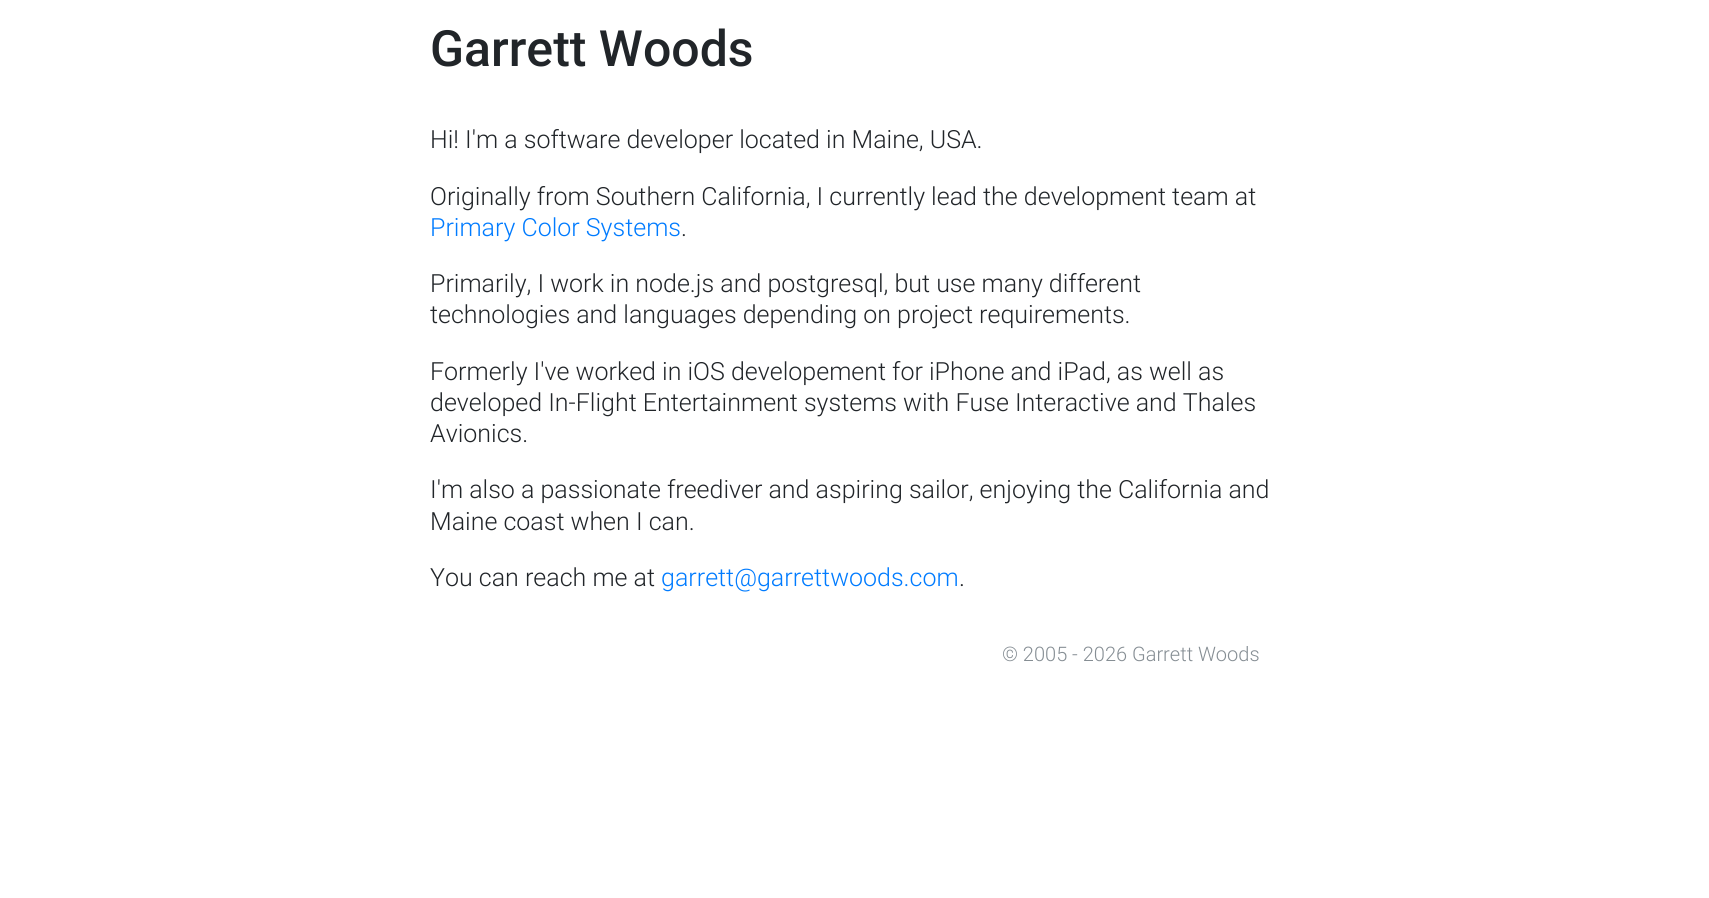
#include <cairo/cairo.h>
#include <math.h>
#include <stddef.h>

static cairo_t *cr;

static void use_color(int r, int g, int b) {
  cairo_set_source_rgb(cr, r / 255.0, g / 255.0, b / 255.0);
}

static void text(double x, double y, const char *s, const char *family, double size, int italic, int bold, int r, int g, int b) {
  cairo_select_font_face(cr, family, italic ? CAIRO_FONT_SLANT_ITALIC : CAIRO_FONT_SLANT_NORMAL,
    bold ? CAIRO_FONT_WEIGHT_BOLD : CAIRO_FONT_WEIGHT_NORMAL);
  cairo_set_font_size(cr, size);
  use_color(r, g, b);
  cairo_move_to(cr, x, y);
  cairo_show_text(cr, s);
}

static void draw(void) {
  use_color(255, 255, 255);
  cairo_paint(cr);
  text(430, 66, "Garrett Woods", "Roboto Medium", 50, 0, 0, 33, 37, 41);
  text(430, 148, "Hi! I'm a software developer located in Maine, USA.", "Roboto Light", 25, 0, 0, 33, 37, 41);
  text(430, 205, "Originally from Southern California, I currently lead the development team at", "Roboto Light", 25, 0, 0, 33, 37, 41);
  text(430, 236, "Primary Color Systems", "Roboto Light", 25, 0, 0, 0, 123, 255);
  text(681, 236, ".", "Roboto Light", 25, 0, 0, 33, 37, 41);
  text(430, 292, "Primarily, I work in node.js and postgresql, but use many different", "Roboto Light", 25, 0, 0, 33, 37, 41);
  text(430, 323, "technologies and languages depending on project requirements.", "Roboto Light", 25, 0, 0, 33, 37, 41);
  text(430, 380, "Formerly I've worked in iOS developement for iPhone and iPad, as well as", "Roboto Light", 25, 0, 0, 33, 37, 41);
  text(430, 411, "developed In-Flight Entertainment systems with Fuse Interactive and Thales", "Roboto Light", 25, 0, 0, 33, 37, 41);
  text(430, 442, "Avionics.", "Roboto Light", 25, 0, 0, 33, 37, 41);
  text(430, 498, "I'm also a passionate freediver and aspiring sailor, enjoying the California and", "Roboto Light", 25, 0, 0, 33, 37, 41);
  text(430, 530, "Maine coast when I can.", "Roboto Light", 25, 0, 0, 33, 37, 41);
  text(430, 586, "You can reach me at", "Roboto Light", 25, 0, 0, 33, 37, 41);
  text(661, 586, "garrett@garrettwoods.com", "Roboto Light", 25, 0, 0, 0, 123, 255);
  text(959, 586, ".", "Roboto Light", 25, 0, 0, 33, 37, 41);
  text(1002, 661, "© 2005 - 2026 Garrett Woods", "Roboto Light", 20, 0, 0, 134, 142, 148);
}

int main(void) {
  cairo_surface_t *surface = cairo_image_surface_create(CAIRO_FORMAT_RGB24, 1709, 898);
  cr = cairo_create(surface);
  cairo_font_options_t *options = cairo_font_options_create();
  cairo_font_options_set_hint_metrics(options, CAIRO_HINT_METRICS_OFF);
  cairo_font_options_set_hint_style(options, CAIRO_HINT_STYLE_NONE);
  cairo_set_font_options(cr, options);
  cairo_set_miter_limit(cr, 4);
  draw();
  cairo_surface_write_to_png(surface, "out.png");
  cairo_font_options_destroy(options);
  cairo_destroy(cr);
  cairo_surface_destroy(surface);
  return 0;
}
